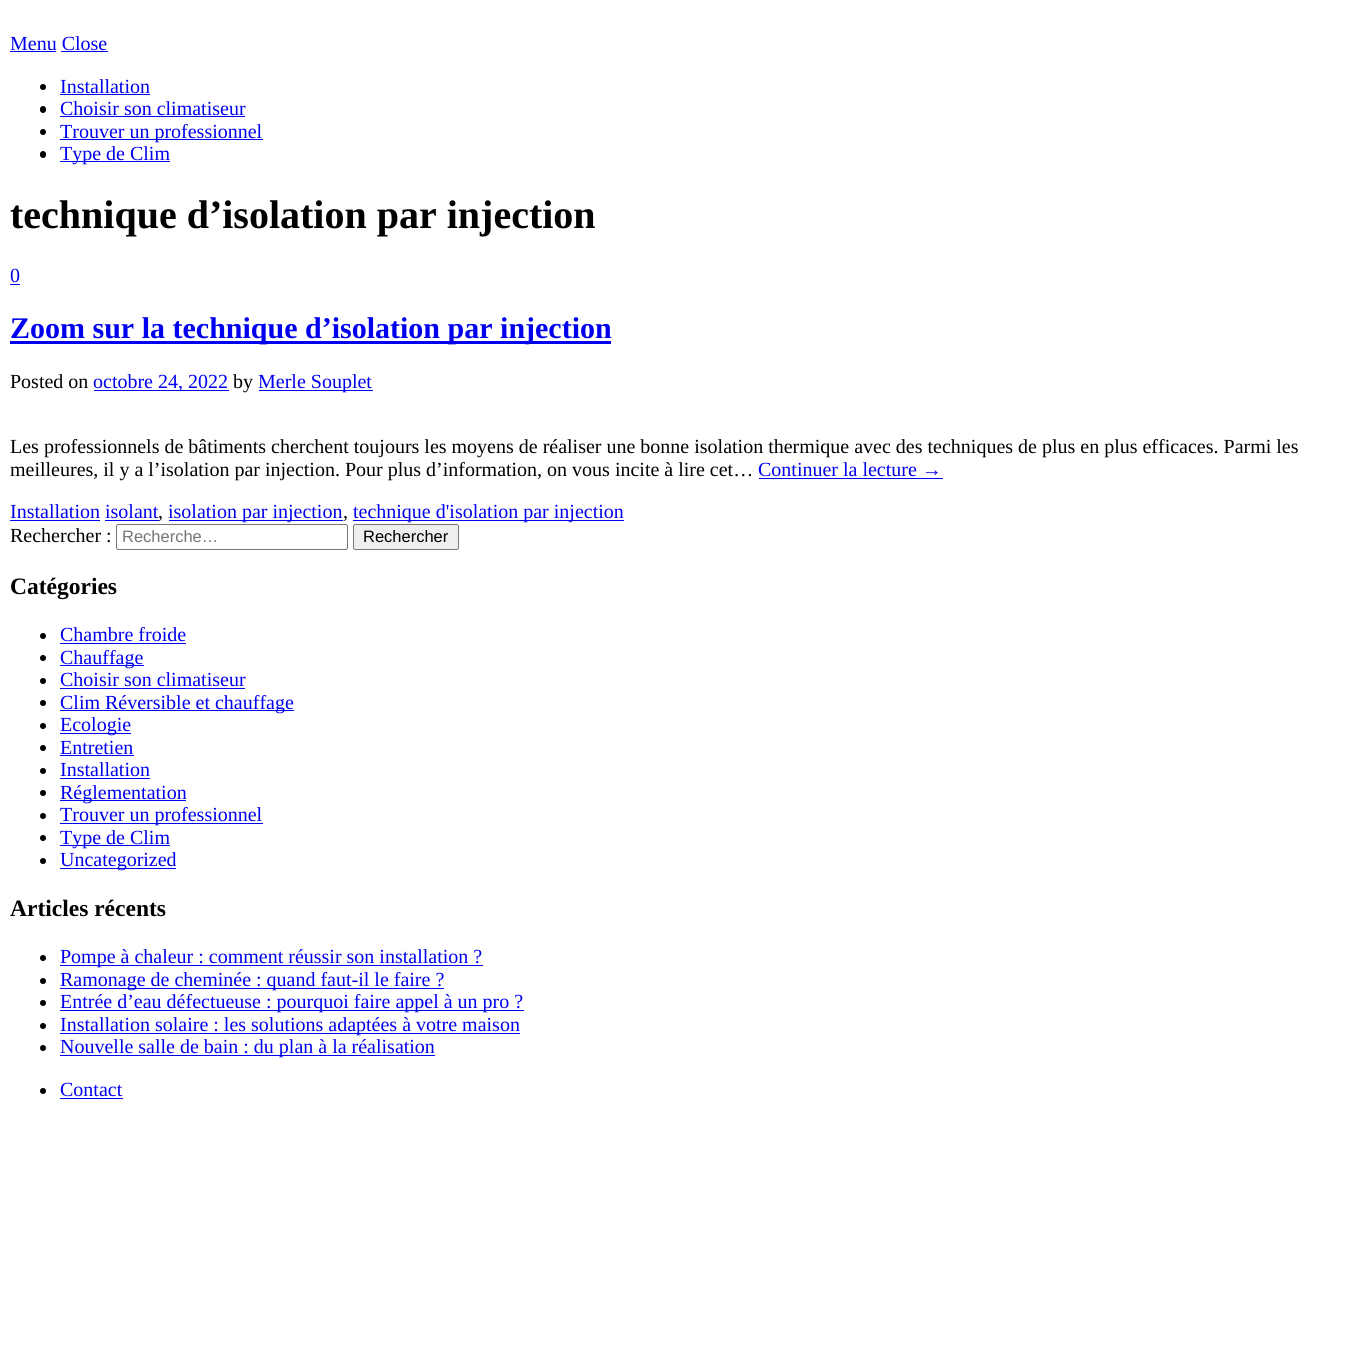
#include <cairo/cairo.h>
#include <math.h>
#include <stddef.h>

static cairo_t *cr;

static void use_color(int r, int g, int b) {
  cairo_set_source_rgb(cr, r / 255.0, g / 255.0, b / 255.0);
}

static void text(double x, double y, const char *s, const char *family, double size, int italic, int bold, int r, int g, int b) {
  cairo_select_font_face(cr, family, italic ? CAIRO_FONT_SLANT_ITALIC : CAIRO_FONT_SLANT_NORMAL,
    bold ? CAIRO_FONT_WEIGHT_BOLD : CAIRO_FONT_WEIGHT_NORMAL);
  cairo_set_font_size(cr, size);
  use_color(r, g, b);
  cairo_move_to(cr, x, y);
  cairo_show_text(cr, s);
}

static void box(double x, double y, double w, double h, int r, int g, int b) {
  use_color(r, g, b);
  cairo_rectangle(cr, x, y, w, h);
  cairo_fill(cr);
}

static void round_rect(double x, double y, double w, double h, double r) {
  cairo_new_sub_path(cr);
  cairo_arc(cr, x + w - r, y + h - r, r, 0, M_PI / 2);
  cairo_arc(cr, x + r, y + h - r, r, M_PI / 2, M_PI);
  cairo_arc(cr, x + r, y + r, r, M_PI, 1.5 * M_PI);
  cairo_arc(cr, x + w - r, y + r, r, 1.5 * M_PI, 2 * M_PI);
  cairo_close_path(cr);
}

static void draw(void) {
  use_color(255, 255, 255);
  cairo_paint(cr);
  box(10, 51, 46, 1, 0, 0, 238);
  box(61, 51, 47, 1, 0, 0, 238);
  use_color(0, 0, 0);
  cairo_arc(cr, 43, 87, 3, 0, 2 * M_PI);
  cairo_fill(cr);
  box(60, 94, 90, 1, 0, 0, 238);
  use_color(0, 0, 0);
  round_rect(40, 106, 6, 7, 3);
  cairo_fill(cr);
  box(60, 116, 185, 1, 0, 0, 238);
  use_color(0, 0, 0);
  cairo_arc(cr, 43, 132, 3, 0, 2 * M_PI);
  cairo_fill(cr);
  box(60, 139, 203, 1, 0, 0, 238);
  use_color(0, 0, 0);
  round_rect(40, 151, 6, 7, 3);
  cairo_fill(cr);
  box(60, 161, 110, 1, 0, 0, 238);
  box(10, 284, 10, 1, 0, 0, 238);
  box(10, 341, 601, 3, 0, 0, 238);
  box(94, 390, 135, 1, 0, 0, 238);
  box(259, 390, 114, 1, 0, 0, 238);
  box(759, 478, 184, 1, 0, 0, 238);
  box(10, 520, 90, 1, 0, 0, 238);
  box(105, 520, 54, 1, 0, 0, 238);
  box(169, 520, 174, 1, 0, 0, 238);
  box(353, 520, 271, 1, 0, 0, 238);
  round_rect(116.5, 524.5, 231, 25, 2);
  use_color(118, 118, 118);
  cairo_set_line_width(cr, 1);
  cairo_stroke(cr);
  use_color(239, 239, 239);
  round_rect(353.5, 524.5, 105, 25, 2);
  cairo_fill_preserve(cr);
  use_color(118, 118, 118);
  cairo_stroke(cr);
  use_color(0, 0, 0);
  cairo_arc(cr, 43, 636, 3, 0, 2 * M_PI);
  cairo_fill(cr);
  box(60, 643, 126, 1, 0, 0, 238);
  use_color(0, 0, 0);
  cairo_arc(cr, 43, 658, 3, 0, 2 * M_PI);
  cairo_fill(cr);
  box(60, 665, 84, 1, 0, 0, 238);
  use_color(0, 0, 0);
  cairo_arc(cr, 43, 681, 3, 0, 2 * M_PI);
  cairo_fill(cr);
  box(60, 688, 185, 1, 0, 0, 238);
  use_color(0, 0, 0);
  cairo_arc(cr, 43, 703, 3, 0, 2 * M_PI);
  cairo_fill(cr);
  box(60, 710, 234, 1, 0, 0, 238);
  use_color(0, 0, 0);
  cairo_arc(cr, 43, 726, 3, 0, 2 * M_PI);
  cairo_fill(cr);
  box(60, 733, 71, 1, 0, 0, 238);
  use_color(0, 0, 0);
  cairo_arc(cr, 43, 748, 3, 0, 2 * M_PI);
  cairo_fill(cr);
  box(60, 755, 74, 1, 0, 0, 238);
  use_color(0, 0, 0);
  cairo_arc(cr, 43, 771, 3, 0, 2 * M_PI);
  cairo_fill(cr);
  box(60, 778, 90, 1, 0, 0, 238);
  use_color(0, 0, 0);
  cairo_arc(cr, 43, 793, 3, 0, 2 * M_PI);
  cairo_fill(cr);
  box(60, 800, 126, 1, 0, 0, 238);
  use_color(0, 0, 0);
  cairo_arc(cr, 43, 816, 3, 0, 2 * M_PI);
  cairo_fill(cr);
  box(60, 823, 203, 1, 0, 0, 238);
  use_color(0, 0, 0);
  cairo_arc(cr, 43, 838, 3, 0, 2 * M_PI);
  cairo_fill(cr);
  box(60, 845, 110, 1, 0, 0, 238);
  use_color(0, 0, 0);
  cairo_arc(cr, 43, 861, 3, 0, 2 * M_PI);
  cairo_fill(cr);
  box(60, 868, 116, 1, 0, 0, 238);
  use_color(0, 0, 0);
  cairo_arc(cr, 43, 958, 3, 0, 2 * M_PI);
  cairo_fill(cr);
  box(60, 965, 423, 1, 0, 0, 238);
  use_color(0, 0, 0);
  cairo_arc(cr, 43, 981, 3, 0, 2 * M_PI);
  cairo_fill(cr);
  box(60, 988, 384, 1, 0, 0, 238);
  use_color(0, 0, 0);
  cairo_arc(cr, 43, 1003, 3, 0, 2 * M_PI);
  cairo_fill(cr);
  box(60, 1010, 464, 1, 0, 0, 238);
  use_color(0, 0, 0);
  cairo_arc(cr, 43, 1026, 3, 0, 2 * M_PI);
  cairo_fill(cr);
  box(60, 1033, 460, 1, 0, 0, 238);
  use_color(0, 0, 0);
  cairo_arc(cr, 43, 1048, 3, 0, 2 * M_PI);
  cairo_fill(cr);
  box(60, 1055, 375, 1, 0, 0, 238);
  use_color(0, 0, 0);
  cairo_arc(cr, 43, 1091, 3, 0, 2 * M_PI);
  cairo_fill(cr);
  box(60, 1098, 63, 1, 0, 0, 238);
  text(10, 50, "Menu Close", "Liberation Serif", 20, 0, 0, 0, 0, 238);
  text(60, 93, "Installation", "Liberation Serif", 20, 0, 0, 0, 0, 238);
  text(60, 115, "Choisir son climatiseur", "Liberation Serif", 20, 0, 0, 0, 0, 238);
  text(60, 138, "Trouver un professionnel", "Liberation Serif", 20, 0, 0, 0, 0, 238);
  text(60, 160, "Type de Clim", "Liberation Serif", 20, 0, 0, 0, 0, 238);
  text(10, 228, "technique d’isolation par injection", "Liberation Serif", 40, 0, 1, 0, 0, 0);
  text(10, 282, "0", "Liberation Serif", 20, 0, 0, 0, 0, 238);
  text(10, 338, "Zoom sur la technique d’isolation par injection", "Liberation Serif", 30, 0, 1, 0, 0, 238);
  text(10, 388, "Posted on", "Liberation Serif", 20, 0, 0, 0, 0, 0);
  text(93, 388, "octobre 24, 2022", "Liberation Serif", 20, 0, 0, 0, 0, 238);
  text(233, 388, "by", "Liberation Serif", 20, 0, 0, 0, 0, 0);
  text(258, 388, "Merle Souplet", "Liberation Serif", 20, 0, 0, 0, 0, 238);
  text(10, 453, "Les professionnels de bâtiments cherchent toujours les moyens de réaliser une bonne isolation thermique avec des techniques de plus en plus efficaces. Parmi les", "Liberation Serif", 20, 0, 0, 0, 0, 0);
  text(10, 476, "meilleures, il y a l’isolation par injection. Pour plus d’information, on vous incite à lire cet…", "Liberation Serif", 20, 0, 0, 0, 0, 0);
  text(758, 476, "Continuer la lecture →", "Liberation Serif", 20, 0, 0, 0, 0, 238);
  text(10, 518, "Installation isolant", "Liberation Serif", 20, 0, 0, 0, 0, 238);
  text(158, 518, ",", "Liberation Serif", 20, 0, 0, 0, 0, 0);
  text(168, 518, "isolation par injection", "Liberation Serif", 20, 0, 0, 0, 0, 238);
  text(343, 518, ",", "Liberation Serif", 20, 0, 0, 0, 0, 0);
  text(353, 518, "technique d'isolation par injection", "Liberation Serif", 20, 0, 0, 0, 0, 238);
  text(10, 542, "Rechercher :", "Liberation Serif", 20, 0, 0, 0, 0, 0);
  text(122, 542, "Recherche…", "Liberation Sans", 16.5, 0, 0, 117, 117, 117);
  text(363, 542, "Rechercher", "Liberation Sans", 16.5, 0, 0, 0, 0, 0);
  text(10, 594, "Catégories", "Liberation Serif", 23.5, 0, 1, 0, 0, 0);
  text(60, 641, "Chambre froide", "Liberation Serif", 20, 0, 0, 0, 0, 238);
  text(60, 664, "Chauffage", "Liberation Serif", 20, 0, 0, 0, 0, 238);
  text(60, 686, "Choisir son climatiseur", "Liberation Serif", 20, 0, 0, 0, 0, 238);
  text(60, 709, "Clim Réversible et chauffage", "Liberation Serif", 20, 0, 0, 0, 0, 238);
  text(60, 731, "Ecologie", "Liberation Serif", 20, 0, 0, 0, 0, 238);
  text(60, 754, "Entretien", "Liberation Serif", 20, 0, 0, 0, 0, 238);
  text(60, 776, "Installation", "Liberation Serif", 20, 0, 0, 0, 0, 238);
  text(60, 799, "Réglementation", "Liberation Serif", 20, 0, 0, 0, 0, 238);
  text(60, 821, "Trouver un professionnel", "Liberation Serif", 20, 0, 0, 0, 0, 238);
  text(60, 844, "Type de Clim", "Liberation Serif", 20, 0, 0, 0, 0, 238);
  text(60, 866, "Uncategorized", "Liberation Serif", 20, 0, 0, 0, 0, 238);
  text(10, 916, "Articles récents", "Liberation Serif", 23.5, 0, 1, 0, 0, 0);
  text(60, 963, "Pompe à chaleur : comment réussir son installation ?", "Liberation Serif", 20, 0, 0, 0, 0, 238);
  text(60, 986, "Ramonage de cheminée : quand faut-il le faire ?", "Liberation Serif", 20, 0, 0, 0, 0, 238);
  text(60, 1008, "Entrée d’eau défectueuse : pourquoi faire appel à un pro ?", "Liberation Serif", 20, 0, 0, 0, 0, 238);
  text(60, 1031, "Installation solaire : les solutions adaptées à votre maison", "Liberation Serif", 20, 0, 0, 0, 0, 238);
  text(60, 1053, "Nouvelle salle de bain : du plan à la réalisation", "Liberation Serif", 20, 0, 0, 0, 0, 238);
  text(60, 1096, "Contact", "Liberation Serif", 20, 0, 0, 0, 0, 238);
}

int main(void) {
  cairo_surface_t *surface = cairo_image_surface_create(CAIRO_FORMAT_RGB24, 1356, 1353);
  cr = cairo_create(surface);
  cairo_font_options_t *options = cairo_font_options_create();
  cairo_font_options_set_hint_metrics(options, CAIRO_HINT_METRICS_OFF);
  cairo_font_options_set_hint_style(options, CAIRO_HINT_STYLE_NONE);
  cairo_set_font_options(cr, options);
  cairo_set_miter_limit(cr, 4);
  draw();
  cairo_surface_write_to_png(surface, "out.png");
  cairo_font_options_destroy(options);
  cairo_destroy(cr);
  cairo_surface_destroy(surface);
  return 0;
}
